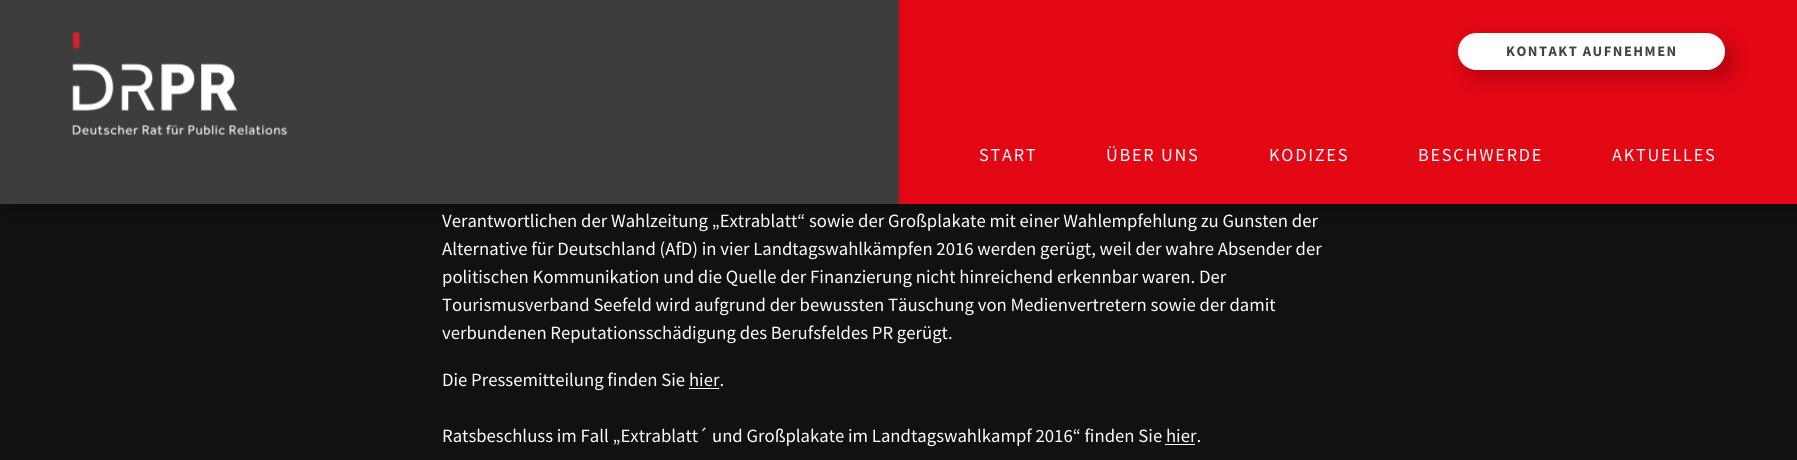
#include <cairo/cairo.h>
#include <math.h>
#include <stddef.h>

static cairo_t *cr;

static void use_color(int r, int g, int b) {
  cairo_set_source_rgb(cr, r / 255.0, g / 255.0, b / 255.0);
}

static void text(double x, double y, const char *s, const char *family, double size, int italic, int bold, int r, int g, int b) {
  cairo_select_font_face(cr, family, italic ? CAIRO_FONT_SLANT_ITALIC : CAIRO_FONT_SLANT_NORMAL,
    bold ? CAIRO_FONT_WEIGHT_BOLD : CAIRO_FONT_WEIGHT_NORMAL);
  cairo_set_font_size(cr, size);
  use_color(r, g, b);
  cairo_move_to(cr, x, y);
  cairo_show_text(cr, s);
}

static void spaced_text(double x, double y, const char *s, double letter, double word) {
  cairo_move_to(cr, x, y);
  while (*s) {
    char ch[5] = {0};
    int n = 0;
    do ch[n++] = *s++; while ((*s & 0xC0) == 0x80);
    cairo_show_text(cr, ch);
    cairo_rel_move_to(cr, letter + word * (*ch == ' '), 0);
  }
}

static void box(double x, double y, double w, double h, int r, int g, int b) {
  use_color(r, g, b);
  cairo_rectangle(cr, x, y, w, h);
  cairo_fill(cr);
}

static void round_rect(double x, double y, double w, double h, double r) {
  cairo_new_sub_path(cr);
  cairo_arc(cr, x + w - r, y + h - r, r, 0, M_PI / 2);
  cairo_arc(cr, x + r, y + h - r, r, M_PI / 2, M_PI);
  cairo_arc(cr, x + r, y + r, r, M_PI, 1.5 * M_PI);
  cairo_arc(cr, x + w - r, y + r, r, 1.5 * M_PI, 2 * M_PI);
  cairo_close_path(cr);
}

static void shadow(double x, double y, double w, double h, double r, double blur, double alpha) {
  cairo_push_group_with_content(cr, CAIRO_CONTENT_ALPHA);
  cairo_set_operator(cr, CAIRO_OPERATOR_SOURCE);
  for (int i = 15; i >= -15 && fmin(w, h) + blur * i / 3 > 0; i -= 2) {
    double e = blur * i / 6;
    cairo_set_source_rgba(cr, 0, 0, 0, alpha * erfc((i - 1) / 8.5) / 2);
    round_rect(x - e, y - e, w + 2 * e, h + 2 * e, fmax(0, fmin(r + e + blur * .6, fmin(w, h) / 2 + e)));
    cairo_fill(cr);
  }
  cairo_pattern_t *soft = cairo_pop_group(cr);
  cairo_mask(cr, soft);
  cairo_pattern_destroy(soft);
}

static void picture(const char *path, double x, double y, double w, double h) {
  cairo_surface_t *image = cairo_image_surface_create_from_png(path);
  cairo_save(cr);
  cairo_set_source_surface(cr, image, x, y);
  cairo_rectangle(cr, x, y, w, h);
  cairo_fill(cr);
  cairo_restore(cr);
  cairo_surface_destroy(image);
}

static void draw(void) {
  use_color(17, 17, 17);
  cairo_paint(cr);
  use_color(0, 0, 0);
  shadow(9, 9, 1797, 204, 0, 8, 0.2);
  box(0, 0, 899, 204, 61, 61, 61);
  picture("img_01.png", 72, 32, 216, 103);
  box(899, 0, 898, 204, 227, 6, 19);
  use_color(0, 0, 0);
  shadow(1466, 41, 268, 38, 19, 8, 0.2);
  use_color(255, 255, 255);
  round_rect(1458, 33, 267, 37, 18.5);
  cairo_fill(cr);
  box(689, 388, 30, 1, 255, 255, 255);
  box(1165, 444, 30, 1, 255, 255, 255);
  cairo_select_font_face(cr, "Source Sans Pro", CAIRO_FONT_SLANT_NORMAL, CAIRO_FONT_WEIGHT_BOLD);
  cairo_set_font_size(cr, 14.5);
  use_color(68, 68, 68);
  spaced_text(1506, 56, "KONTAKT AUFNEHMEN", 1.5, 0);
  cairo_select_font_face(cr, "Source Sans Pro", CAIRO_FONT_SLANT_NORMAL, CAIRO_FONT_WEIGHT_NORMAL);
  cairo_set_font_size(cr, 18.25);
  use_color(255, 255, 255);
  spaced_text(979, 161, "START", 1.75, 0);
  spaced_text(1106, 161, "ÜBER UNS", 1.75, 0);
  spaced_text(1269, 161, "KODIZES", 1.75, 0);
  spaced_text(1418, 161, "BESCHWERDE", 1.75, 0);
  spaced_text(1612, 161, "AKTUELLES", 1.75, 0);
  text(442, 227, "Verantwortlichen der Wahlzeitung „Extrablatt“ sowie der Großplakate mit einer Wahlempfehlung zu Gunsten der", "Source Sans Pro", 18.7, 0, 0, 255, 255, 255);
  text(442, 255, "Alternative für Deutschland (AfD) in vier Landtagswahlkämpfen 2016 werden gerügt, weil der wahre Absender der", "Source Sans Pro", 18.7, 0, 0, 255, 255, 255);
  text(442, 283, "politischen Kommunikation und die Quelle der Finanzierung nicht hinreichend erkennbar waren. Der", "Source Sans Pro", 18.7, 0, 0, 255, 255, 255);
  text(442, 311, "Tourismusverband Seefeld wird aufgrund der bewussten Täuschung von Medienvertretern sowie der damit", "Source Sans Pro", 18.7, 0, 0, 255, 255, 255);
  text(442, 339, "verbundenen Reputationsschädigung des Berufsfeldes PR gerügt.", "Source Sans Pro", 18.7, 0, 0, 255, 255, 255);
  text(442, 386, "Die Pressemitteilung finden Sie hier.", "Source Sans Pro", 18.7, 0, 0, 255, 255, 255);
  text(442, 442, "Ratsbeschluss im Fall „Extrablatt´ und Großplakate im Landtagswahlkampf 2016“ finden Sie hier.", "Source Sans Pro", 18.7, 0, 0, 255, 255, 255);
}

int main(void) {
  cairo_surface_t *surface = cairo_image_surface_create(CAIRO_FORMAT_RGB24, 1797, 460);
  cr = cairo_create(surface);
  cairo_font_options_t *options = cairo_font_options_create();
  cairo_font_options_set_hint_metrics(options, CAIRO_HINT_METRICS_OFF);
  cairo_font_options_set_hint_style(options, CAIRO_HINT_STYLE_NONE);
  cairo_set_font_options(cr, options);
  cairo_set_miter_limit(cr, 4);
  draw();
  cairo_surface_write_to_png(surface, "out.png");
  cairo_font_options_destroy(options);
  cairo_destroy(cr);
  cairo_surface_destroy(surface);
  return 0;
}
